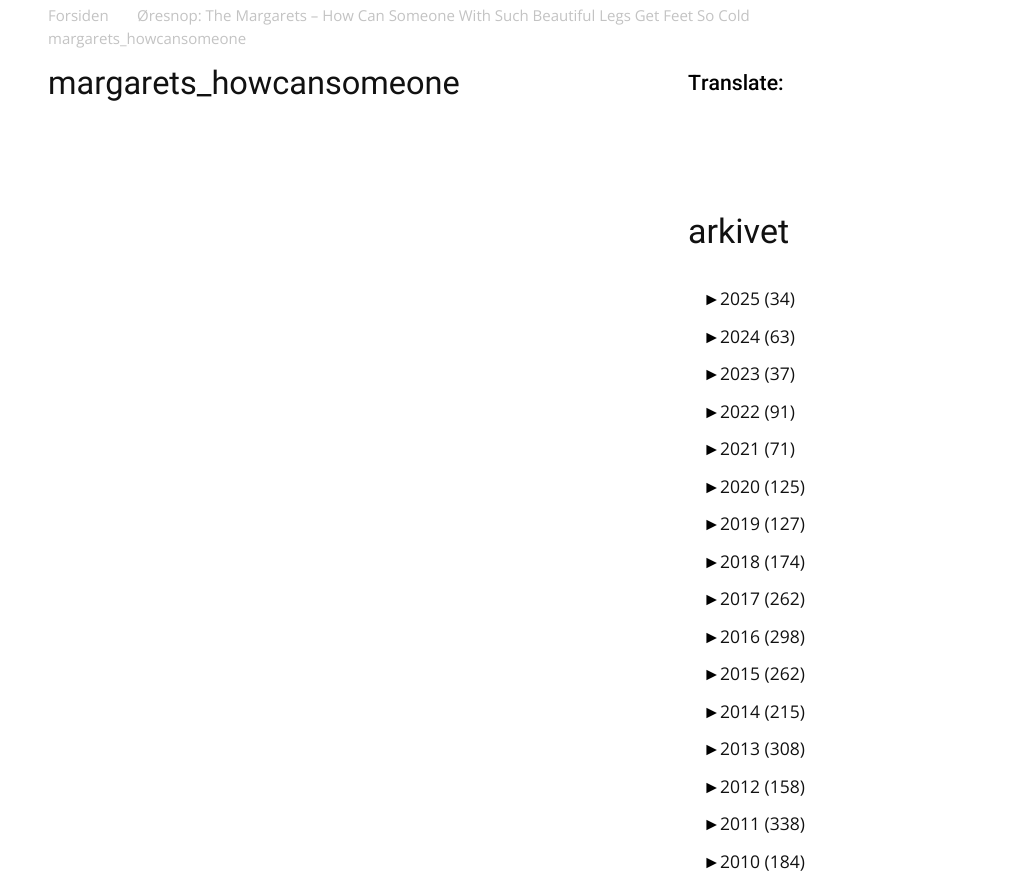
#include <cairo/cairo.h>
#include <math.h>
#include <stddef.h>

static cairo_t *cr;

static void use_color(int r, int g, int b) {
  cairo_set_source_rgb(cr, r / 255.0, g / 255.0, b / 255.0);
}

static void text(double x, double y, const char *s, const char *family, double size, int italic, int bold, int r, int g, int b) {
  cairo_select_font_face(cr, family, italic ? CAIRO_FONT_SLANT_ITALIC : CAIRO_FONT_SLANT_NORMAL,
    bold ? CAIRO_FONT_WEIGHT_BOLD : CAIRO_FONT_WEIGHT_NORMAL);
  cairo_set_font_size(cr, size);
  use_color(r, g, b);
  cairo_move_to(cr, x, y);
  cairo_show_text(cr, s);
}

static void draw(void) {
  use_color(255, 255, 255);
  cairo_paint(cr);
  text(48, 21, "Forsiden", "Open Sans", 15, 0, 0, 195, 195, 195);
  text(137, 21, "Øresnop: The Margarets – How Can Someone With Such Beautiful Legs Get Feet So Cold", "Open Sans", 15, 0, 0, 195, 195, 195);
  text(48, 44, "margarets_howcansomeone", "Open Sans", 15, 0, 0, 195, 195, 195);
  text(48, 94, "margarets_howcansomeone", "Roboto", 32.5, 0, 0, 17, 17, 17);
  text(688, 90, "Translate:", "Roboto Medium", 21.25, 0, 0, 0, 0, 0);
  text(688, 243, "arkivet", "Roboto", 34, 0, 0, 17, 17, 17);
  text(703, 305, "►", "Liberation Sans", 17.5, 0, 0, 0, 0, 0);
  text(720, 305, "2025 (34)", "Open Sans", 17.5, 0, 0, 17, 17, 17);
  text(703, 343, "►", "Liberation Sans", 17.5, 0, 0, 0, 0, 0);
  text(720, 343, "2024 (63)", "Open Sans", 17.5, 0, 0, 17, 17, 17);
  text(703, 380, "►", "Liberation Sans", 17.5, 0, 0, 0, 0, 0);
  text(720, 380, "2023 (37)", "Open Sans", 17.5, 0, 0, 17, 17, 17);
  text(703, 418, "►", "Liberation Sans", 17.5, 0, 0, 0, 0, 0);
  text(720, 418, "2022 (91)", "Open Sans", 17.5, 0, 0, 17, 17, 17);
  text(703, 455, "►", "Liberation Sans", 17.5, 0, 0, 0, 0, 0);
  text(720, 455, "2021 (71)", "Open Sans", 17.5, 0, 0, 17, 17, 17);
  text(703, 493, "►", "Liberation Sans", 17.5, 0, 0, 0, 0, 0);
  text(720, 493, "2020 (125)", "Open Sans", 17.5, 0, 0, 17, 17, 17);
  text(703, 530, "►", "Liberation Sans", 17.5, 0, 0, 0, 0, 0);
  text(720, 530, "2019 (127)", "Open Sans", 17.5, 0, 0, 17, 17, 17);
  text(703, 568, "►", "Liberation Sans", 17.5, 0, 0, 0, 0, 0);
  text(720, 568, "2018 (174)", "Open Sans", 17.5, 0, 0, 17, 17, 17);
  text(703, 605, "►", "Liberation Sans", 17.5, 0, 0, 0, 0, 0);
  text(720, 605, "2017 (262)", "Open Sans", 17.5, 0, 0, 17, 17, 17);
  text(703, 643, "►", "Liberation Sans", 17.5, 0, 0, 0, 0, 0);
  text(720, 643, "2016 (298)", "Open Sans", 17.5, 0, 0, 17, 17, 17);
  text(703, 680, "►", "Liberation Sans", 17.5, 0, 0, 0, 0, 0);
  text(720, 680, "2015 (262)", "Open Sans", 17.5, 0, 0, 17, 17, 17);
  text(703, 718, "►", "Liberation Sans", 17.5, 0, 0, 0, 0, 0);
  text(720, 718, "2014 (215)", "Open Sans", 17.5, 0, 0, 17, 17, 17);
  text(703, 755, "►", "Liberation Sans", 17.5, 0, 0, 0, 0, 0);
  text(720, 755, "2013 (308)", "Open Sans", 17.5, 0, 0, 17, 17, 17);
  text(703, 793, "►", "Liberation Sans", 17.5, 0, 0, 0, 0, 0);
  text(720, 793, "2012 (158)", "Open Sans", 17.5, 0, 0, 17, 17, 17);
  text(703, 830, "►", "Liberation Sans", 17.5, 0, 0, 0, 0, 0);
  text(720, 830, "2011 (338)", "Open Sans", 17.5, 0, 0, 17, 17, 17);
  text(703, 868, "►", "Liberation Sans", 17.5, 0, 0, 0, 0, 0);
  text(720, 868, "2010 (184)", "Open Sans", 17.5, 0, 0, 17, 17, 17);
}

int main(void) {
  cairo_surface_t *surface = cairo_image_surface_create(CAIRO_FORMAT_RGB24, 1021, 883);
  cr = cairo_create(surface);
  cairo_font_options_t *options = cairo_font_options_create();
  cairo_font_options_set_hint_metrics(options, CAIRO_HINT_METRICS_OFF);
  cairo_font_options_set_hint_style(options, CAIRO_HINT_STYLE_NONE);
  cairo_set_font_options(cr, options);
  cairo_set_miter_limit(cr, 4);
  draw();
  cairo_surface_write_to_png(surface, "out.png");
  cairo_font_options_destroy(options);
  cairo_destroy(cr);
  cairo_surface_destroy(surface);
  return 0;
}
